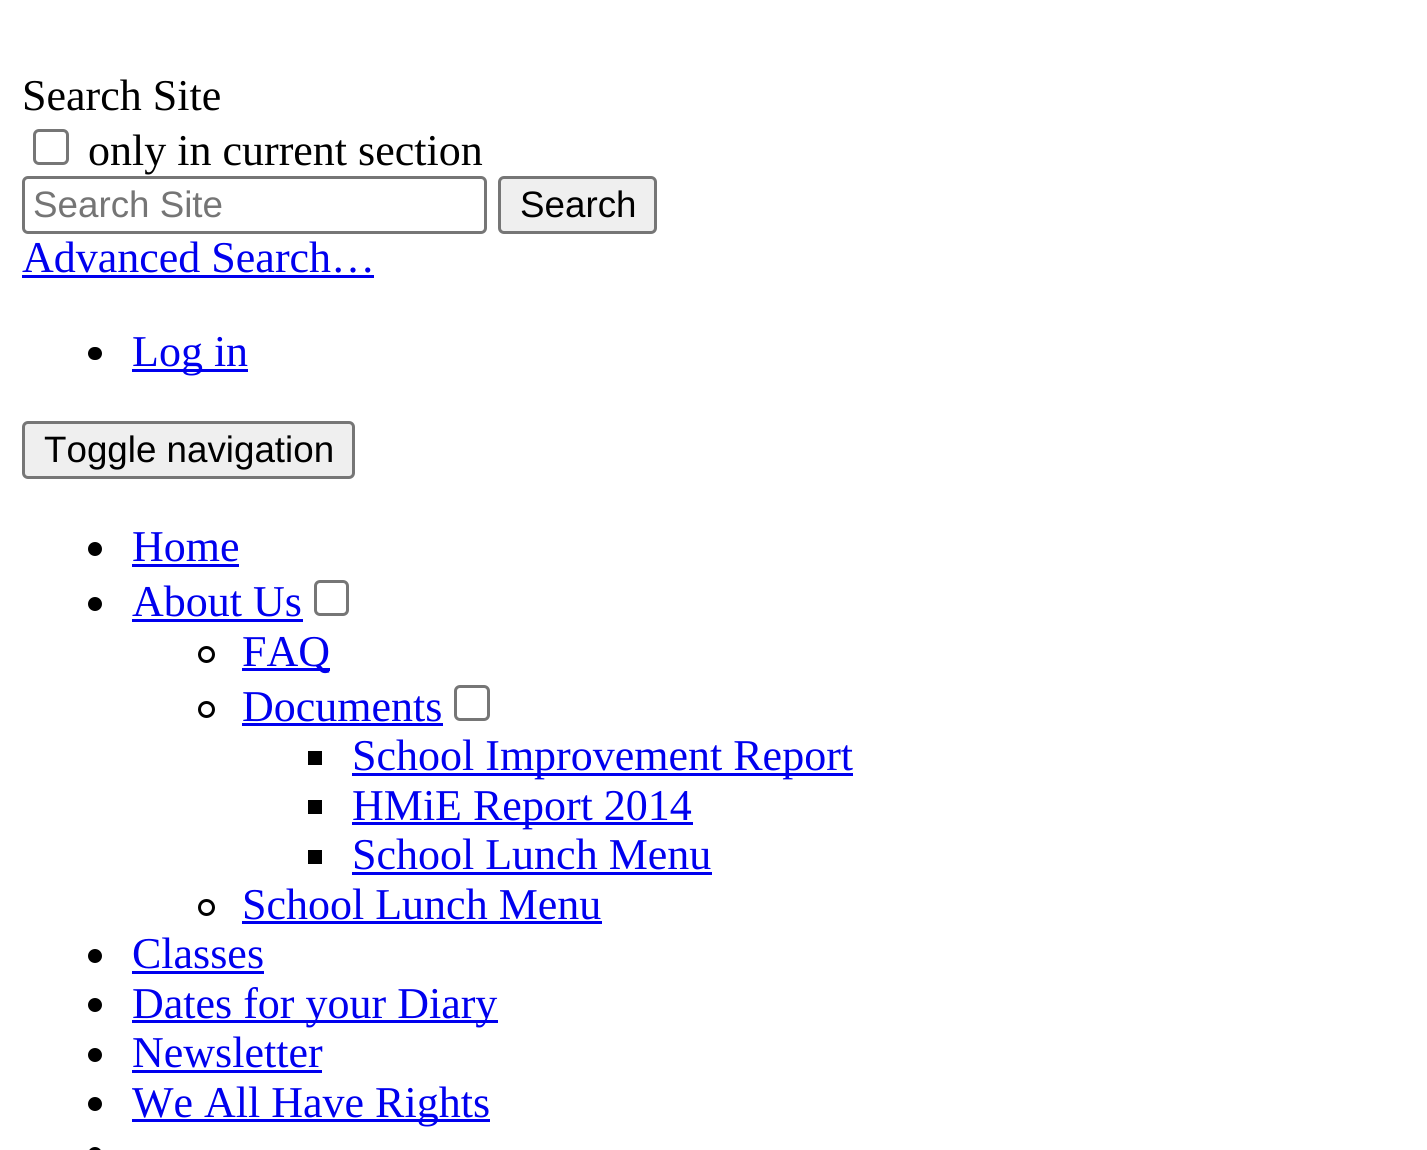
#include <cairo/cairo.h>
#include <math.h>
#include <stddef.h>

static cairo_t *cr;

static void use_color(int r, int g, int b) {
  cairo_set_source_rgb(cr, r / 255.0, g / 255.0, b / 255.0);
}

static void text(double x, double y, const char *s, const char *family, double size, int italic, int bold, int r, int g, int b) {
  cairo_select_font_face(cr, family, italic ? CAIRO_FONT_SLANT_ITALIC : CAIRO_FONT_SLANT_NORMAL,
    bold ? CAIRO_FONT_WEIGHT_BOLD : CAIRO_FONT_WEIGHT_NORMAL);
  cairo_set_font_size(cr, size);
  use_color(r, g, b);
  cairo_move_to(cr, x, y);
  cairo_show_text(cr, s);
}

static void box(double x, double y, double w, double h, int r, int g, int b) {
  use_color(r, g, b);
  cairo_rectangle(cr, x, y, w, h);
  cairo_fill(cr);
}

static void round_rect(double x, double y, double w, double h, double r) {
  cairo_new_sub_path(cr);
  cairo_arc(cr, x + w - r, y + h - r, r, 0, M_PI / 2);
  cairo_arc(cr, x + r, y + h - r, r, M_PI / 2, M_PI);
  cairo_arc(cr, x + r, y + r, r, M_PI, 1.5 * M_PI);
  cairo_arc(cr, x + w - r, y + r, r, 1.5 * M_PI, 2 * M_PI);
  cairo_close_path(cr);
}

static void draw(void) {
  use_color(255, 255, 255);
  cairo_paint(cr);
  round_rect(34.5, 130.5, 33, 33, 4.5);
  use_color(118, 118, 118);
  cairo_set_line_width(cr, 3);
  cairo_stroke(cr);
  round_rect(23.5, 177.5, 462, 55, 4.5);
  cairo_stroke(cr);
  use_color(239, 239, 239);
  round_rect(499.5, 177.5, 156, 55, 4.5);
  cairo_fill_preserve(cr);
  use_color(118, 118, 118);
  cairo_stroke(cr);
  box(22, 275, 352, 3, 0, 0, 238);
  use_color(0, 0, 0);
  round_rect(88, 347, 14, 13, 6.5);
  cairo_fill(cr);
  box(132, 369, 116, 3, 0, 0, 238);
  use_color(239, 239, 239);
  round_rect(23.5, 422.5, 330, 55, 4.5);
  cairo_fill_preserve(cr);
  use_color(118, 118, 118);
  cairo_stroke(cr);
  use_color(0, 0, 0);
  cairo_arc(cr, 95, 549, 7, 0, 2 * M_PI);
  cairo_fill(cr);
  box(132, 564, 107, 3, 0, 0, 238);
  use_color(0, 0, 0);
  cairo_arc(cr, 95, 604, 7, 0, 2 * M_PI);
  cairo_fill(cr);
  box(132, 619, 171, 3, 0, 0, 238);
  round_rect(315.5, 581.5, 32, 33, 4.5);
  use_color(118, 118, 118);
  cairo_stroke(cr);
  cairo_arc(cr, 206.5, 654.5, 7, 0, 2 * M_PI);
  use_color(0, 0, 0);
  cairo_stroke(cr);
  box(242, 668, 88, 3, 0, 0, 238);
  cairo_arc(cr, 206.5, 709.5, 7, 0, 2 * M_PI);
  use_color(0, 0, 0);
  cairo_stroke(cr);
  box(242, 723, 201, 3, 0, 0, 238);
  round_rect(455.5, 686.5, 33, 33, 4.5);
  use_color(118, 118, 118);
  cairo_stroke(cr);
  box(308, 751, 14, 14, 0, 0, 0);
  box(352, 773, 501, 3, 0, 0, 238);
  box(308, 800, 14, 14, 0, 0, 0);
  box(352, 822, 341, 3, 0, 0, 238);
  box(308, 850, 14, 14, 0, 0, 0);
  box(352, 872, 360, 3, 0, 0, 238);
  cairo_arc(cr, 206.5, 907.5, 7, 0, 2 * M_PI);
  use_color(0, 0, 0);
  cairo_stroke(cr);
  box(242, 921, 360, 3, 0, 0, 238);
  use_color(0, 0, 0);
  cairo_arc(cr, 95, 956, 7, 0, 2 * M_PI);
  cairo_fill(cr);
  box(132, 971, 132, 3, 0, 0, 238);
  use_color(0, 0, 0);
  cairo_arc(cr, 95, 1005, 7, 0, 2 * M_PI);
  cairo_fill(cr);
  box(132, 1020, 366, 3, 0, 0, 238);
  use_color(0, 0, 0);
  cairo_arc(cr, 95, 1055, 7, 0, 2 * M_PI);
  cairo_fill(cr);
  box(132, 1070, 190, 3, 0, 0, 238);
  use_color(0, 0, 0);
  cairo_arc(cr, 95, 1104, 7, 0, 2 * M_PI);
  cairo_fill(cr);
  box(132, 1119, 358, 3, 0, 0, 238);
  use_color(0, 0, 0);
  round_rect(88, 1147, 14, 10, 7);
  cairo_fill(cr);
  text(22, 110, "Search Site", "Liberation Serif", 44, 0, 0, 0, 0, 0);
  text(88, 165, "only in current section", "Liberation Serif", 44, 0, 0, 0, 0, 0);
  text(33, 217, "Search Site", "Liberation Sans", 36.75, 0, 0, 117, 117, 117);
  text(520, 217, "Search", "Liberation Sans", 36.75, 0, 0, 0, 0, 0);
  text(22, 272, "Advanced Search…", "Liberation Serif", 44, 0, 0, 0, 0, 238);
  text(132, 366, "Log in", "Liberation Serif", 44, 0, 0, 0, 0, 238);
  text(44, 462, "Toggle navigation", "Liberation Sans", 36.75, 0, 0, 0, 0, 0);
  text(132, 561, "Home", "Liberation Serif", 44, 0, 0, 0, 0, 238);
  text(132, 616, "About Us", "Liberation Serif", 44, 0, 0, 0, 0, 238);
  text(242, 666, "FAQ", "Liberation Serif", 44, 0, 0, 0, 0, 238);
  text(242, 721, "Documents", "Liberation Serif", 44, 0, 0, 0, 0, 238);
  text(352, 770, "School Improvement Report", "Liberation Serif", 44, 0, 0, 0, 0, 238);
  text(352, 820, "HMiE Report 2014", "Liberation Serif", 44, 0, 0, 0, 0, 238);
  text(352, 869, "School Lunch Menu", "Liberation Serif", 44, 0, 0, 0, 0, 238);
  text(242, 919, "School Lunch Menu", "Liberation Serif", 44, 0, 0, 0, 0, 238);
  text(132, 968, "Classes", "Liberation Serif", 44, 0, 0, 0, 0, 238);
  text(132, 1018, "Dates for your Diary", "Liberation Serif", 44, 0, 0, 0, 0, 238);
  text(132, 1067, "Newsletter", "Liberation Serif", 44, 0, 0, 0, 0, 238);
  text(132, 1117, "We All Have Rights", "Liberation Serif", 44, 0, 0, 0, 0, 238);
}

int main(void) {
  cairo_surface_t *surface = cairo_image_surface_create(CAIRO_FORMAT_RGB24, 1427, 1150);
  cr = cairo_create(surface);
  cairo_font_options_t *options = cairo_font_options_create();
  cairo_font_options_set_hint_metrics(options, CAIRO_HINT_METRICS_OFF);
  cairo_font_options_set_hint_style(options, CAIRO_HINT_STYLE_NONE);
  cairo_set_font_options(cr, options);
  cairo_set_miter_limit(cr, 4);
  draw();
  cairo_surface_write_to_png(surface, "out.png");
  cairo_font_options_destroy(options);
  cairo_destroy(cr);
  cairo_surface_destroy(surface);
  return 0;
}
